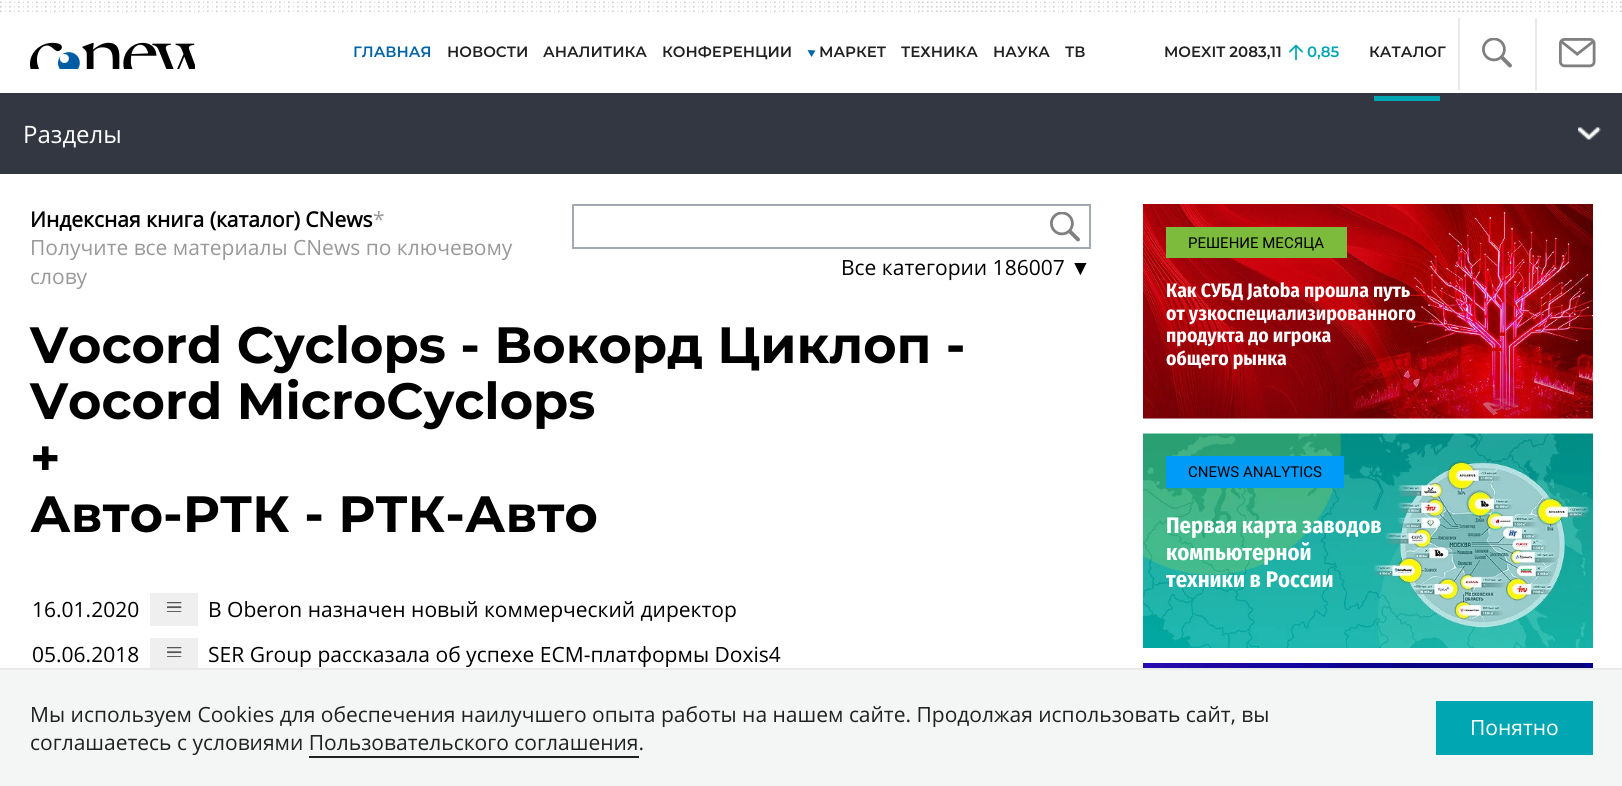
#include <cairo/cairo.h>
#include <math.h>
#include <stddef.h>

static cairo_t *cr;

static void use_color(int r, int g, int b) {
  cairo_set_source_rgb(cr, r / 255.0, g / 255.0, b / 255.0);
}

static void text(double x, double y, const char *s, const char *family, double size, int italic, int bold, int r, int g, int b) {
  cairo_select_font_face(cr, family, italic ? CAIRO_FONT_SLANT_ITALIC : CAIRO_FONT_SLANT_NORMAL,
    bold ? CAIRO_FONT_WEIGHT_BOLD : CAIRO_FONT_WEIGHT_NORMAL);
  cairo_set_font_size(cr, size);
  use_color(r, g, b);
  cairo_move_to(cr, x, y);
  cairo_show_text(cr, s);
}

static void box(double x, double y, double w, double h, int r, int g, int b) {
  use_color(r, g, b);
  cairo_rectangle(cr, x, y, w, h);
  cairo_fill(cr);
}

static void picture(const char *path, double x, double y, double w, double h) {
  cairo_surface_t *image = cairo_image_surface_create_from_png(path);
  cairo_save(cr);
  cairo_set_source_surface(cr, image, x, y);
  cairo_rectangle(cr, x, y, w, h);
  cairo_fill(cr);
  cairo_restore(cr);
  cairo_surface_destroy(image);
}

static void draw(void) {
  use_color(50, 55, 66);
  cairo_paint(cr);
  box(0, 0, 1622, 93, 255, 255, 255);
  picture("img_01.png", 0, 1, 1622, 11);
  picture("img_02.png", 30, 42, 165, 27);
  use_color(1, 100, 167);
  cairo_new_path(cr);
  cairo_move_to(cr, 811.5, 57);
  cairo_line_to(cr, 807.5, 50);
  cairo_line_to(cr, 815.5, 50.5);
  cairo_close_path(cr);
  cairo_fill(cr);
  picture("img_03.png", 1289, 44, 14, 17);
  box(1374, 96, 66, 5, 0, 167, 179);
  box(1458, 18, 2, 72, 233, 233, 233);
  picture("img_04.png", 1482, 38, 30, 30);
  box(1535, 18, 2, 72, 233, 233, 233);
  picture("img_05.png", 1559, 38, 37, 30);
  picture("img_06.png", 1578, 127, 23, 13);
  box(0, 174, 1622, 494, 255, 255, 255);
  cairo_rectangle(cr, 573, 205, 517, 43);
  use_color(162, 169, 177);
  cairo_stroke(cr);
  picture("img_04.png", 1050, 212, 30, 30);
  picture("img_07.png", 1143, 204, 450, 215);
  box(1166, 227, 181, 31, 124, 187, 59);
  picture("img_08.png", 1143, 433, 450, 215);
  box(1166, 456, 178, 32, 0, 155, 249);
  picture("img_09.png", 1143, 663, 450, 5);
  box(150, 593, 48, 33, 239, 239, 239);
  picture("img_10.png", 167, 602, 15, 10);
  box(150, 638, 48, 30, 239, 239, 239);
  picture("img_10.png", 167, 647, 15, 10);
  box(0, 670, 1622, 116, 244, 245, 245);
  box(0, 668, 1622, 2, 233, 233, 233);
  box(309, 756, 330, 2, 33, 33, 33);
  box(1436, 701, 157, 54, 0, 167, 179);
  text(353, 57, "ГЛАВНАЯ", "Montserrat SemiBold", 15, 0, 0, 1, 100, 167);
  text(447, 57, "НОВОСТИ", "Montserrat SemiBold", 15, 0, 0, 33, 33, 33);
  text(543, 57, "АНАЛИТИКА", "Montserrat SemiBold", 15, 0, 0, 33, 33, 33);
  text(662, 57, "КОНФЕРЕНЦИИ", "Montserrat SemiBold", 15, 0, 0, 33, 33, 33);
  text(819, 57, "МАРКЕТ", "Montserrat SemiBold", 15, 0, 0, 33, 33, 33);
  text(901, 57, "ТЕХНИКА", "Montserrat SemiBold", 15, 0, 0, 33, 33, 33);
  text(993, 57, "НАУКА", "Montserrat SemiBold", 15, 0, 0, 33, 33, 33);
  text(1065, 57, "ТВ", "Montserrat SemiBold", 15, 0, 0, 33, 33, 33);
  text(1164, 57, "MOEXIT 2083,11", "Montserrat SemiBold", 15, 0, 0, 33, 33, 33);
  text(1307, 57, "0,85", "Montserrat SemiBold", 15, 0, 0, 0, 167, 179);
  text(1369, 57, "КАТАЛОГ", "Montserrat SemiBold", 15, 0, 0, 33, 33, 33);
  text(23, 143, "Разделы", "Open Sans", 24, 0, 0, 255, 255, 255);
  text(30, 227, "Индексная книга (каталог) CNews", "Open Sans", 21, 0, 1, 0, 0, 0);
  text(373, 227, "*", "Open Sans", 21, 0, 0, 153, 153, 153);
  text(30, 255, "Получите все материалы CNews по ключевому", "Open Sans", 21, 0, 0, 153, 153, 153);
  text(30, 284, "слову", "Open Sans", 21, 0, 0, 153, 153, 153);
  text(841, 275, "Все категории 186007", "Open Sans", 21, 0, 0, 0, 0, 0);
  text(1070, 275, "▼", "Liberation Sans", 21, 0, 0, 0, 0, 0);
  text(1188, 248, "РЕШЕНИЕ МЕСЯЦА", "Roboto", 15, 0, 0, 0, 0, 0);
  text(1166, 297, "Как СУБД Jatoba прошла путь", "Fira Sans Condensed", 19.5, 0, 1, 255, 255, 255);
  text(1166, 320, "от узкоспециализированного", "Fira Sans Condensed", 19.5, 0, 1, 255, 255, 255);
  text(1166, 342, "продукта до игрока", "Fira Sans Condensed", 19.5, 0, 1, 255, 255, 255);
  text(1166, 365, "общего рынка", "Fira Sans Condensed", 19.5, 0, 1, 255, 255, 255);
  text(1188, 477, "CNEWS ANALYTICS", "Roboto", 15, 0, 0, 0, 0, 0);
  text(1166, 533, "Первая карта заводов", "Fira Sans Condensed", 22.5, 0, 1, 255, 255, 255);
  text(1166, 560, "компьютерной", "Fira Sans Condensed", 22.5, 0, 1, 255, 255, 255);
  text(1166, 587, "техники в России", "Fira Sans Condensed", 22.5, 0, 1, 255, 255, 255);
  text(30, 363, "Vocord Cyclops - Вокорд Циклоп -", "Montserrat", 51, 0, 1, 0, 0, 0);
  text(30, 419, "Vocord MicroCyclops", "Montserrat", 51, 0, 1, 0, 0, 0);
  text(30, 476, "+", "Montserrat", 51, 0, 1, 0, 0, 0);
  text(30, 532, "Авто-РТК - РТК-Авто", "Montserrat", 51, 0, 1, 0, 0, 0);
  text(32, 617, "16.01.2020", "Open Sans", 21, 0, 0, 0, 0, 0);
  text(208, 617, "В Oberon назначен новый коммерческий директор", "Open Sans", 21, 0, 0, 0, 0, 0);
  text(32, 662, "05.06.2018", "Open Sans", 21, 0, 0, 0, 0, 0);
  text(208, 662, "SER Group рассказала об успехе ECM-платформы Doxis4", "Open Sans", 21, 0, 0, 0, 0, 0);
  text(30, 722, "Мы используем Сookies для обеспечения наилучшего опыта работы на нашем сайте. Продолжая использовать сайт, вы", "Open Sans", 21, 0, 0, 33, 33, 33);
  text(30, 750, "соглашаетесь с условиями Пользовательского соглашения.", "Open Sans", 21, 0, 0, 33, 33, 33);
  text(1470, 735, "Понятно", "Open Sans", 21, 0, 0, 255, 255, 255);
}

int main(void) {
  cairo_surface_t *surface = cairo_image_surface_create(CAIRO_FORMAT_RGB24, 1622, 786);
  cr = cairo_create(surface);
  cairo_font_options_t *options = cairo_font_options_create();
  cairo_font_options_set_hint_metrics(options, CAIRO_HINT_METRICS_OFF);
  cairo_font_options_set_hint_style(options, CAIRO_HINT_STYLE_NONE);
  cairo_set_font_options(cr, options);
  cairo_set_miter_limit(cr, 4);
  draw();
  cairo_surface_write_to_png(surface, "out.png");
  cairo_font_options_destroy(options);
  cairo_destroy(cr);
  cairo_surface_destroy(surface);
  return 0;
}
